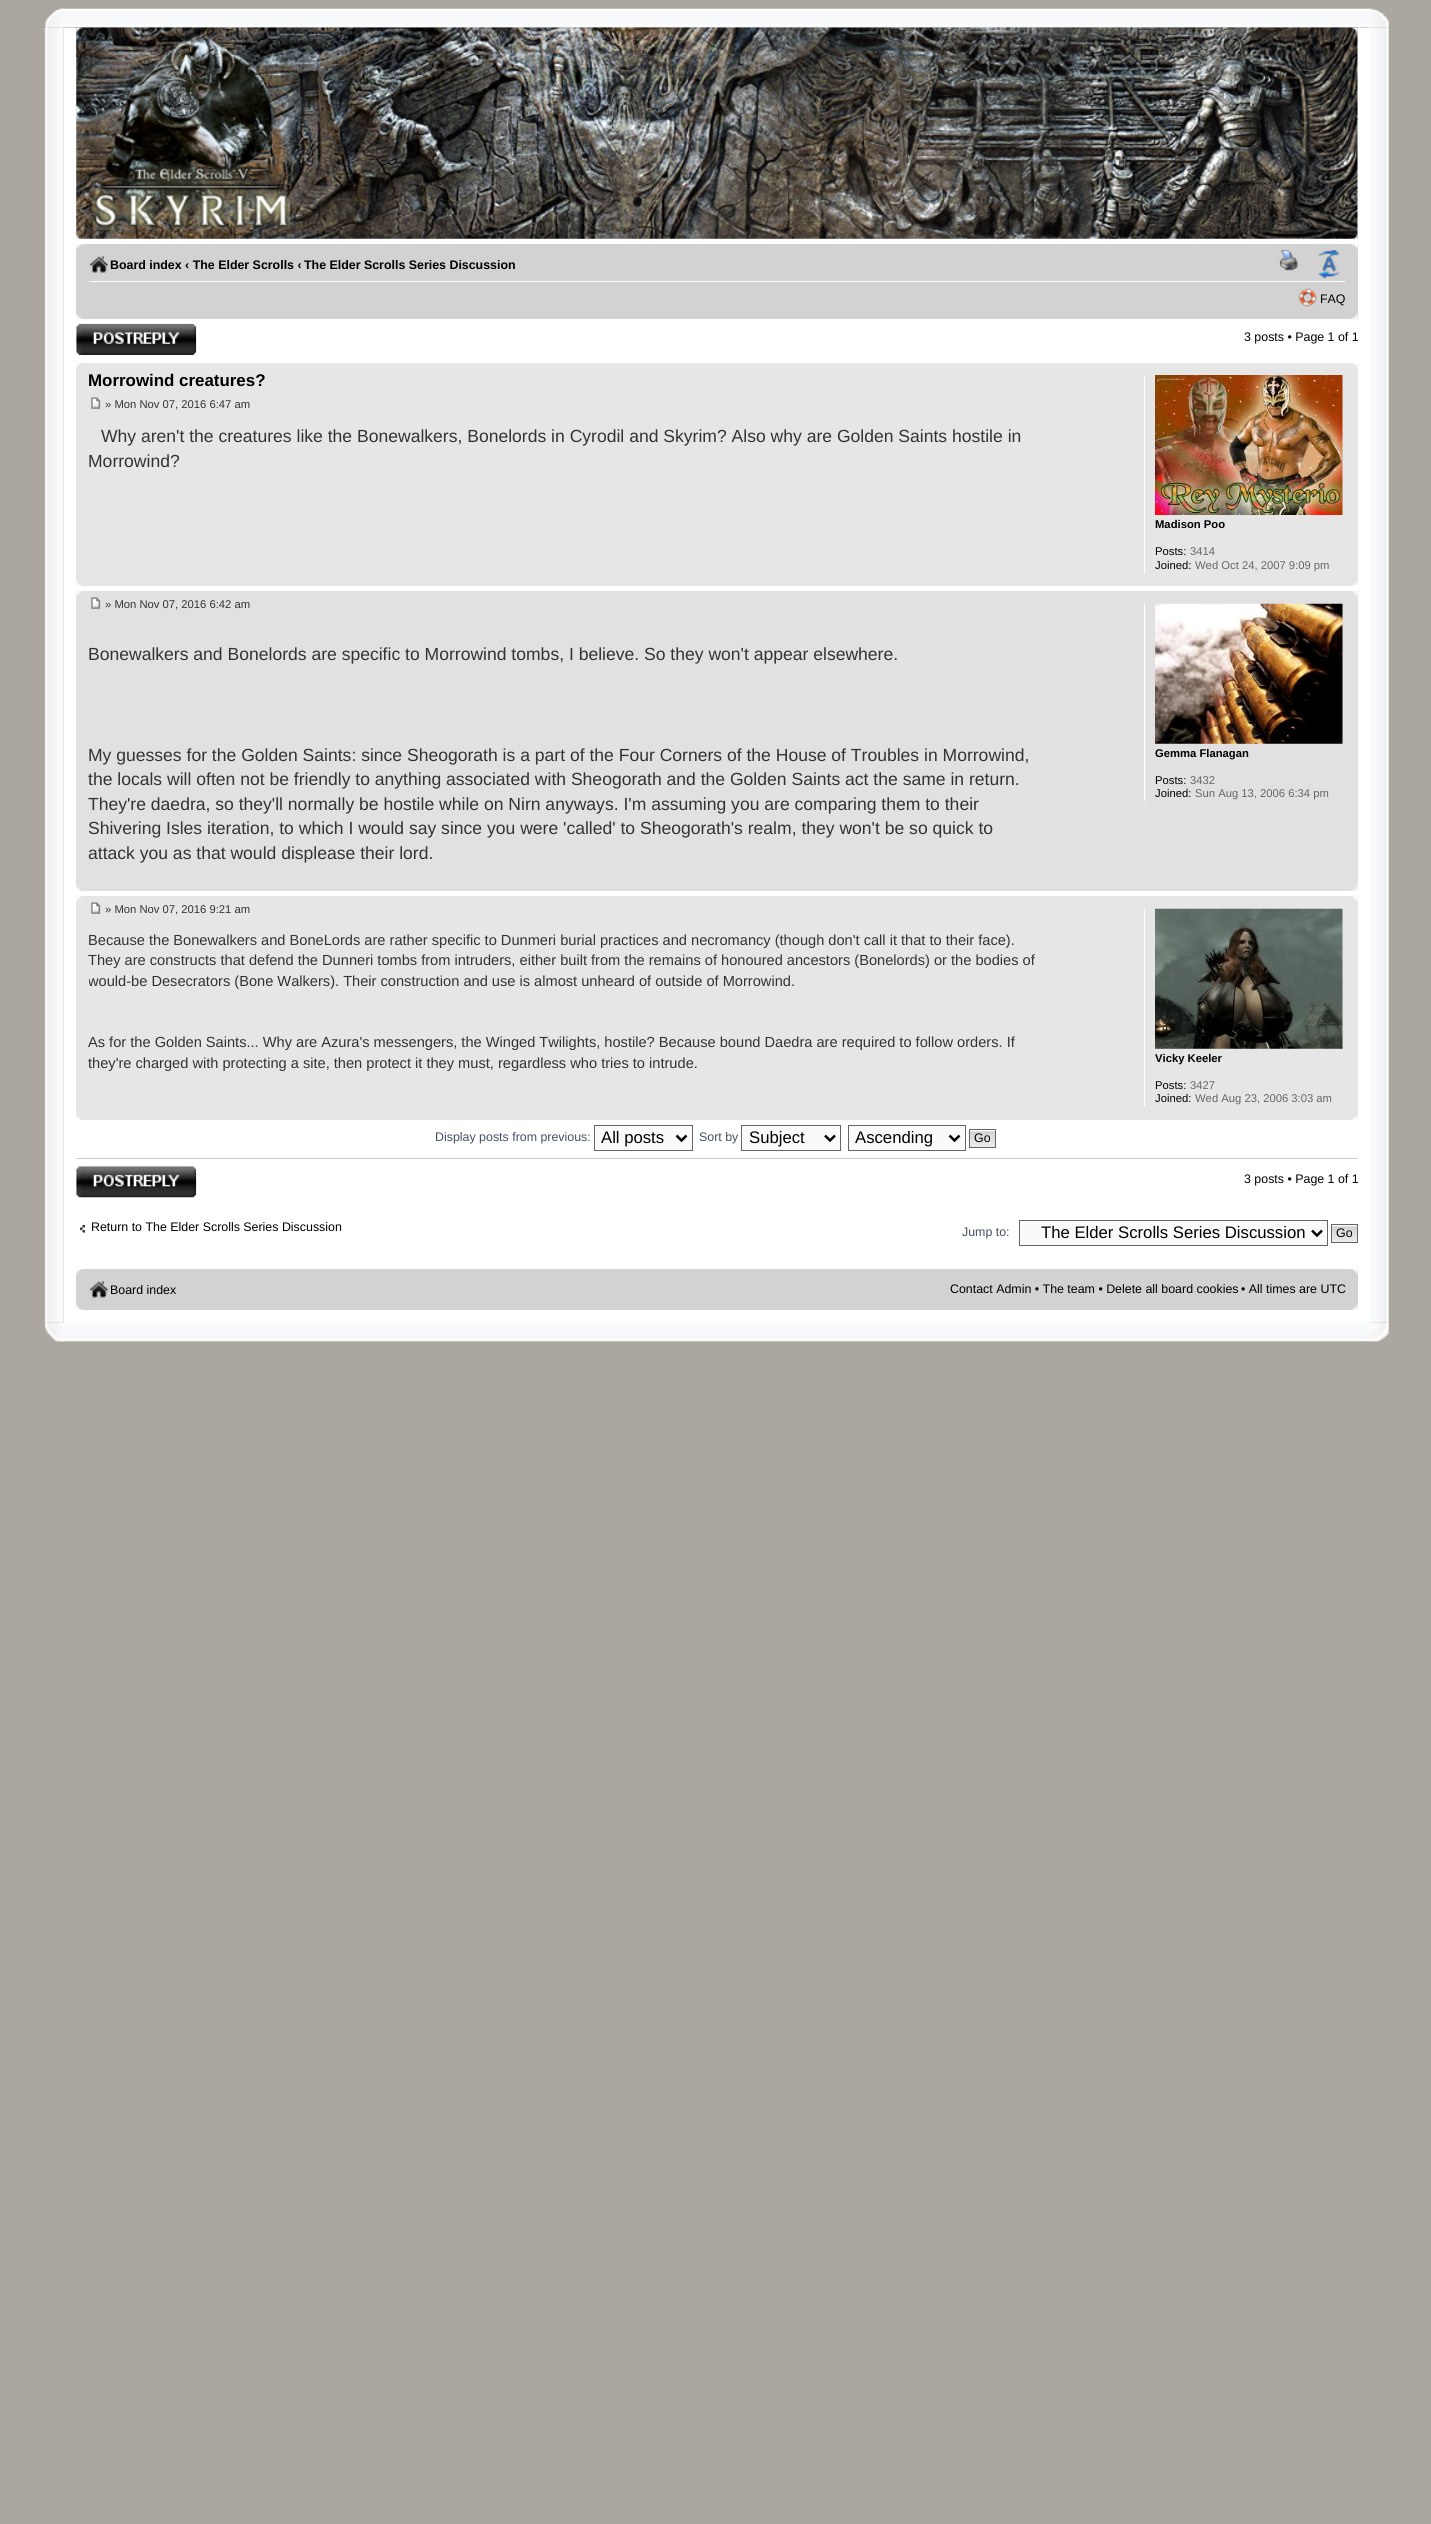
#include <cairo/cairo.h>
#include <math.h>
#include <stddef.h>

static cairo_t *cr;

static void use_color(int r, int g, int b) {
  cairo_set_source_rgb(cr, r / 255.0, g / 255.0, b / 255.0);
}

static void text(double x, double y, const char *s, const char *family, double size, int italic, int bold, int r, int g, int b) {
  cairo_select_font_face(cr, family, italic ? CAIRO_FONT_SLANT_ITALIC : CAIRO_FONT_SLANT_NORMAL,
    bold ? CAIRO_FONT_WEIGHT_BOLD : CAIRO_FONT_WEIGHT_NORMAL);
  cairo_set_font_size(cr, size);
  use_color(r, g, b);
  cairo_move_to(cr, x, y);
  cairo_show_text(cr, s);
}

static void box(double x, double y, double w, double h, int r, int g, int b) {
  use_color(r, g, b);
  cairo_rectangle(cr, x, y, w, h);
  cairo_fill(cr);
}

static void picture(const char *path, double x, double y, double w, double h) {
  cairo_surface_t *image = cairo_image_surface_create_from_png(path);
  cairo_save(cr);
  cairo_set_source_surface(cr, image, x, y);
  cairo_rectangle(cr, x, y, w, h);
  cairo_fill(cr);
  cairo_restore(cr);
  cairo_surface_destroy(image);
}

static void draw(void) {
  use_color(171, 167, 160);
  cairo_paint(cr);
  picture("img_01.png", 45, 8, 19, 20);
  picture("img_02.png", 61, 8, 1309, 20);
  picture("img_03.png", 1368, 8, 22, 20);
  picture("img_04.png", 44, 27, 20, 1296);
  picture("img_05.png", 1370, 27, 19, 1296);
  box(64, 28, 1306, 1295, 255, 255, 255);
  picture("img_06.png", 76, 27, 1282, 212);
  picture("img_07.png", 76, 27, 7, 7);
  picture("img_08.png", 1351, 27, 7, 7);
  picture("img_09.png", 92, 35, 198, 196);
  picture("img_10.png", 76, 233, 6, 6);
  picture("img_11.png", 1351, 233, 7, 6);
  box(76, 244, 1282, 75, 210, 210, 210);
  picture("img_12.png", 76, 244, 7, 6);
  picture("img_13.png", 1351, 244, 7, 6);
  box(89, 281, 1256, 1, 255, 255, 255);
  picture("img_14.png", 89, 256, 19, 17);
  picture("img_15.png", 1279, 250, 19, 21);
  picture("img_16.png", 1318, 250, 21, 29);
  picture("img_17.png", 1298, 288, 19, 19);
  picture("img_18.png", 76, 313, 7, 6);
  picture("img_19.png", 1351, 313, 7, 6);
  picture("img_20.png", 76, 323, 121, 32);
  box(76, 363, 1282, 223, 230, 230, 230);
  picture("img_21.png", 76, 363, 6, 5);
  picture("img_22.png", 1352, 363, 6, 5);
  picture("img_23.png", 91, 397, 10, 12);
  box(1144, 375, 1, 198, 255, 255, 255);
  picture("img_24.png", 1155, 375, 188, 140);
  picture("img_25.png", 76, 580, 6, 6);
  picture("img_26.png", 1352, 581, 6, 5);
  box(76, 591, 1282, 300, 225, 225, 225);
  picture("img_27.png", 76, 591, 6, 6);
  picture("img_28.png", 1352, 591, 6, 6);
  picture("img_29.png", 91, 597, 10, 12);
  box(1144, 604, 1, 197, 255, 255, 255);
  picture("img_30.png", 1155, 603, 188, 141);
  picture("img_31.png", 76, 885, 6, 6);
  picture("img_32.png", 1351, 885, 7, 6);
  box(76, 896, 1282, 224, 230, 230, 230);
  picture("img_33.png", 76, 896, 6, 6);
  picture("img_34.png", 1352, 896, 6, 6);
  picture("img_23.png", 91, 902, 10, 12);
  box(1144, 909, 1, 197, 255, 255, 255);
  picture("img_35.png", 1155, 908, 188, 141);
  picture("img_36.png", 76, 1114, 6, 6);
  picture("img_37.png", 1351, 1114, 7, 6);
  use_color(250, 250, 250);
  cairo_rectangle(cr, 594.5, 1125.5, 98, 25);
  cairo_fill_preserve(cr);
  use_color(102, 102, 102);
  cairo_set_line_width(cr, 1);
  cairo_stroke(cr);
  cairo_new_path(cr);
  cairo_move_to(cr, 676.5, 1135.5);
  cairo_line_to(cr, 681.5, 1140.5);
  cairo_line_to(cr, 686.5, 1135.5);
  use_color(0, 0, 0);
  cairo_set_line_width(cr, 2.5);
  cairo_stroke(cr);
  use_color(250, 250, 250);
  cairo_rectangle(cr, 741.5, 1125.5, 99, 25);
  cairo_fill_preserve(cr);
  use_color(102, 102, 102);
  cairo_set_line_width(cr, 1);
  cairo_stroke(cr);
  cairo_new_path(cr);
  cairo_move_to(cr, 825, 1135.5);
  cairo_line_to(cr, 830, 1140.5);
  cairo_line_to(cr, 835, 1135.5);
  use_color(0, 0, 0);
  cairo_set_line_width(cr, 2.5);
  cairo_stroke(cr);
  use_color(250, 250, 250);
  cairo_rectangle(cr, 848.5, 1125.5, 117, 25);
  cairo_fill_preserve(cr);
  use_color(102, 102, 102);
  cairo_set_line_width(cr, 1);
  cairo_stroke(cr);
  cairo_new_path(cr);
  cairo_move_to(cr, 949.5, 1135.5);
  cairo_line_to(cr, 954.5, 1140.5);
  cairo_line_to(cr, 959.5, 1135.5);
  use_color(0, 0, 0);
  cairo_set_line_width(cr, 2.5);
  cairo_stroke(cr);
  picture("img_38.png", 968, 1130, 29, 18);
  cairo_rectangle(cr, 969.5, 1129.5, 26, 18);
  use_color(102, 102, 102);
  cairo_set_line_width(cr, 1);
  cairo_stroke(cr);
  box(76, 1158, 1282, 1, 204, 204, 204);
  picture("img_39.png", 76, 1166, 121, 32);
  picture("img_40.png", 80, 1225, 5, 8);
  use_color(250, 250, 250);
  cairo_rectangle(cr, 1019.5, 1220.5, 308, 25);
  cairo_fill_preserve(cr);
  use_color(102, 102, 102);
  cairo_stroke(cr);
  cairo_new_path(cr);
  cairo_move_to(cr, 1312, 1230.5);
  cairo_line_to(cr, 1317, 1235.5);
  cairo_line_to(cr, 1322, 1230.5);
  use_color(0, 0, 0);
  cairo_set_line_width(cr, 2.5);
  cairo_stroke(cr);
  picture("img_41.png", 1332, 1225, 25, 17);
  cairo_rectangle(cr, 1331.5, 1224.5, 26, 18);
  use_color(102, 102, 102);
  cairo_set_line_width(cr, 1);
  cairo_stroke(cr);
  box(76, 1269, 1282, 41, 210, 210, 210);
  picture("img_12.png", 76, 1269, 7, 6);
  picture("img_13.png", 1351, 1269, 7, 6);
  picture("img_42.png", 89, 1281, 19, 17);
  picture("img_43.png", 76, 1304, 7, 6);
  picture("img_44.png", 1351, 1304, 7, 6);
  picture("img_45.png", 44, 1322, 20, 21);
  picture("img_46.png", 61, 1322, 1309, 20);
  picture("img_47.png", 1368, 1322, 21, 20);
  text(110, 269, "Board index ‹ The Elder Scrolls ‹", "Liberation Sans", 12.4, 0, 1, 0, 0, 0);
  text(304, 269, "The Elder Scrolls Series Discussion", "Liberation Sans", 12.4, 0, 1, 0, 0, 0);
  text(1320, 303, "FAQ", "Liberation Sans", 12.4, 0, 0, 0, 0, 0);
  text(1244, 341, "3 posts • Page 1 of 1", "Liberation Sans", 12.4, 0, 0, 0, 0, 0);
  text(88, 386, "Morrowind creatures?", "Liberation Sans", 16.9, 0, 1, 0, 0, 0);
  text(105, 408, "» Mon Nov 07, 2016 6:47 am", "Liberation Sans", 11.25, 0, 0, 51, 51, 51);
  text(101, 442, "Why aren't the creatures like the Bonewalkers, Bonelords in Cyrodil and Skyrim? Also why are Golden Saints hostile in", "Liberation Sans", 17.55, 0, 0, 51, 51, 51);
  text(88, 467, "Morrowind?", "Liberation Sans", 17.55, 0, 0, 51, 51, 51);
  text(1155, 528, "Madison Poo", "Liberation Sans", 11.25, 0, 1, 0, 0, 0);
  text(1155, 555, "Posts:", "Liberation Sans", 11.25, 0, 0, 0, 0, 0);
  text(1190, 555, "3414", "Liberation Sans", 11.25, 0, 0, 102, 102, 102);
  text(1155, 569, "Joined:", "Liberation Sans", 11.25, 0, 0, 0, 0, 0);
  text(1195, 569, "Wed Oct 24, 2007 9:09 pm", "Liberation Sans", 11.25, 0, 0, 102, 102, 102);
  text(105, 608, "» Mon Nov 07, 2016 6:42 am", "Liberation Sans", 11.25, 0, 0, 51, 51, 51);
  text(88, 660, "Bonewalkers and Bonelords are specific to Morrowind tombs, I believe. So they won't appear elsewhere.", "Liberation Sans", 17.55, 0, 0, 51, 51, 51);
  text(88, 761, "My guesses for the Golden Saints: since Sheogorath is a part of the Four Corners of the House of Troubles in Morrowind,", "Liberation Sans", 17.55, 0, 0, 51, 51, 51);
  text(88, 785, "the locals will often not be friendly to anything associated with Sheogorath and the Golden Saints act the same in return.", "Liberation Sans", 17.55, 0, 0, 51, 51, 51);
  text(88, 810, "They're daedra, so they'll normally be hostile while on Nirn anyways. I'm assuming you are comparing them to their", "Liberation Sans", 17.55, 0, 0, 51, 51, 51);
  text(88, 834, "Shivering Isles iteration, to which I would say since you were 'called' to Sheogorath's realm, they won't be so quick to", "Liberation Sans", 17.55, 0, 0, 51, 51, 51);
  text(88, 859, "attack you as that would displease their lord.", "Liberation Sans", 17.55, 0, 0, 51, 51, 51);
  text(1155, 757, "Gemma Flanagan", "Liberation Sans", 11.25, 0, 1, 0, 0, 0);
  text(1155, 784, "Posts:", "Liberation Sans", 11.25, 0, 0, 0, 0, 0);
  text(1190, 784, "3432", "Liberation Sans", 11.25, 0, 0, 102, 102, 102);
  text(1155, 797, "Joined:", "Liberation Sans", 11.25, 0, 0, 0, 0, 0);
  text(1195, 797, "Sun Aug 13, 2006 6:34 pm", "Liberation Sans", 11.25, 0, 0, 102, 102, 102);
  text(105, 913, "» Mon Nov 07, 2016 9:21 am", "Liberation Sans", 11.25, 0, 0, 51, 51, 51);
  text(88, 945, "Because the Bonewalkers and BoneLords are rather specific to Dunmeri burial practices and necromancy (though don't call it that to their face).", "Liberation Sans", 14.62, 0, 0, 51, 51, 51);
  text(88, 965, "They are constructs that defend the Dunneri tombs from intruders, either built from the remains of honoured ancestors (Bonelords) or the bodies of", "Liberation Sans", 14.62, 0, 0, 51, 51, 51);
  cairo_save(cr);
  cairo_rectangle(cr, 89, 930, 955, 145);
  cairo_clip(cr);
  text(88, 986, "would-be Desecrators (Bone Walkers). Their construction and use is almost unheard of outside of Morrowind.", "Liberation Sans", 14.62, 0, 0, 51, 51, 51);
  cairo_restore(cr);
  text(88, 1047, "As for the Golden Saints... Why are Azura's messengers, the Winged Twilights, hostile? Because bound Daedra are required to follow orders. If", "Liberation Sans", 14.62, 0, 0, 51, 51, 51);
  text(88, 1068, "they're charged with protecting a site, then protect it they must, regardless who tries to intrude.", "Liberation Sans", 14.62, 0, 0, 51, 51, 51);
  text(1155, 1062, "Vicky Keeler", "Liberation Sans", 11.25, 0, 1, 0, 0, 0);
  text(1155, 1089, "Posts:", "Liberation Sans", 11.25, 0, 0, 0, 0, 0);
  text(1190, 1089, "3427", "Liberation Sans", 11.25, 0, 0, 102, 102, 102);
  text(1155, 1102, "Joined:", "Liberation Sans", 11.25, 0, 0, 0, 0, 0);
  text(1195, 1102, "Wed Aug 23, 2006 3:03 am", "Liberation Sans", 11.25, 0, 0, 102, 102, 102);
  text(435, 1141, "Display posts from previous:", "Liberation Sans", 12.4, 0, 0, 66, 80, 103);
  text(601, 1143, "All posts", "Liberation Sans", 16.7, 0, 0, 0, 0, 0);
  text(699, 1141, "Sort by", "Liberation Sans", 12.4, 0, 0, 66, 80, 103);
  text(749, 1143, "Subject", "Liberation Sans", 16.7, 0, 0, 0, 0, 0);
  text(855, 1143, "Ascending", "Liberation Sans", 16.7, 0, 0, 0, 0, 0);
  text(974, 1142, "Go", "Liberation Sans", 12.4, 0, 0, 0, 0, 0);
  text(1244, 1183, "3 posts • Page 1 of 1", "Liberation Sans", 12.4, 0, 0, 0, 0, 0);
  text(91, 1231, "Return to The Elder Scrolls Series Discussion", "Liberation Sans", 12.4, 0, 0, 0, 0, 0);
  text(962, 1236, "Jump to:", "Liberation Sans", 12.4, 0, 0, 66, 80, 103);
  text(1041, 1238, "The Elder Scrolls Series Discussion", "Liberation Sans", 16.7, 0, 0, 0, 0, 0);
  text(1336, 1237, "Go", "Liberation Sans", 12.4, 0, 0, 0, 0, 0);
  text(110, 1294, "Board index", "Liberation Sans", 12.4, 0, 0, 0, 0, 0);
  text(950, 1293, "Contact Admin • The team • Delete all board cookies", "Liberation Sans", 12.4, 0, 0, 0, 0, 0);
  text(1241, 1293, "• All times are UTC", "Liberation Sans", 12.4, 0, 0, 0, 0, 0);
}

int main(void) {
  cairo_surface_t *surface = cairo_image_surface_create(CAIRO_FORMAT_RGB24, 1431, 2524);
  cr = cairo_create(surface);
  cairo_font_options_t *options = cairo_font_options_create();
  cairo_font_options_set_hint_metrics(options, CAIRO_HINT_METRICS_OFF);
  cairo_font_options_set_hint_style(options, CAIRO_HINT_STYLE_NONE);
  cairo_set_font_options(cr, options);
  cairo_set_miter_limit(cr, 4);
  draw();
  cairo_surface_write_to_png(surface, "out.png");
  cairo_font_options_destroy(options);
  cairo_destroy(cr);
  cairo_surface_destroy(surface);
  return 0;
}
